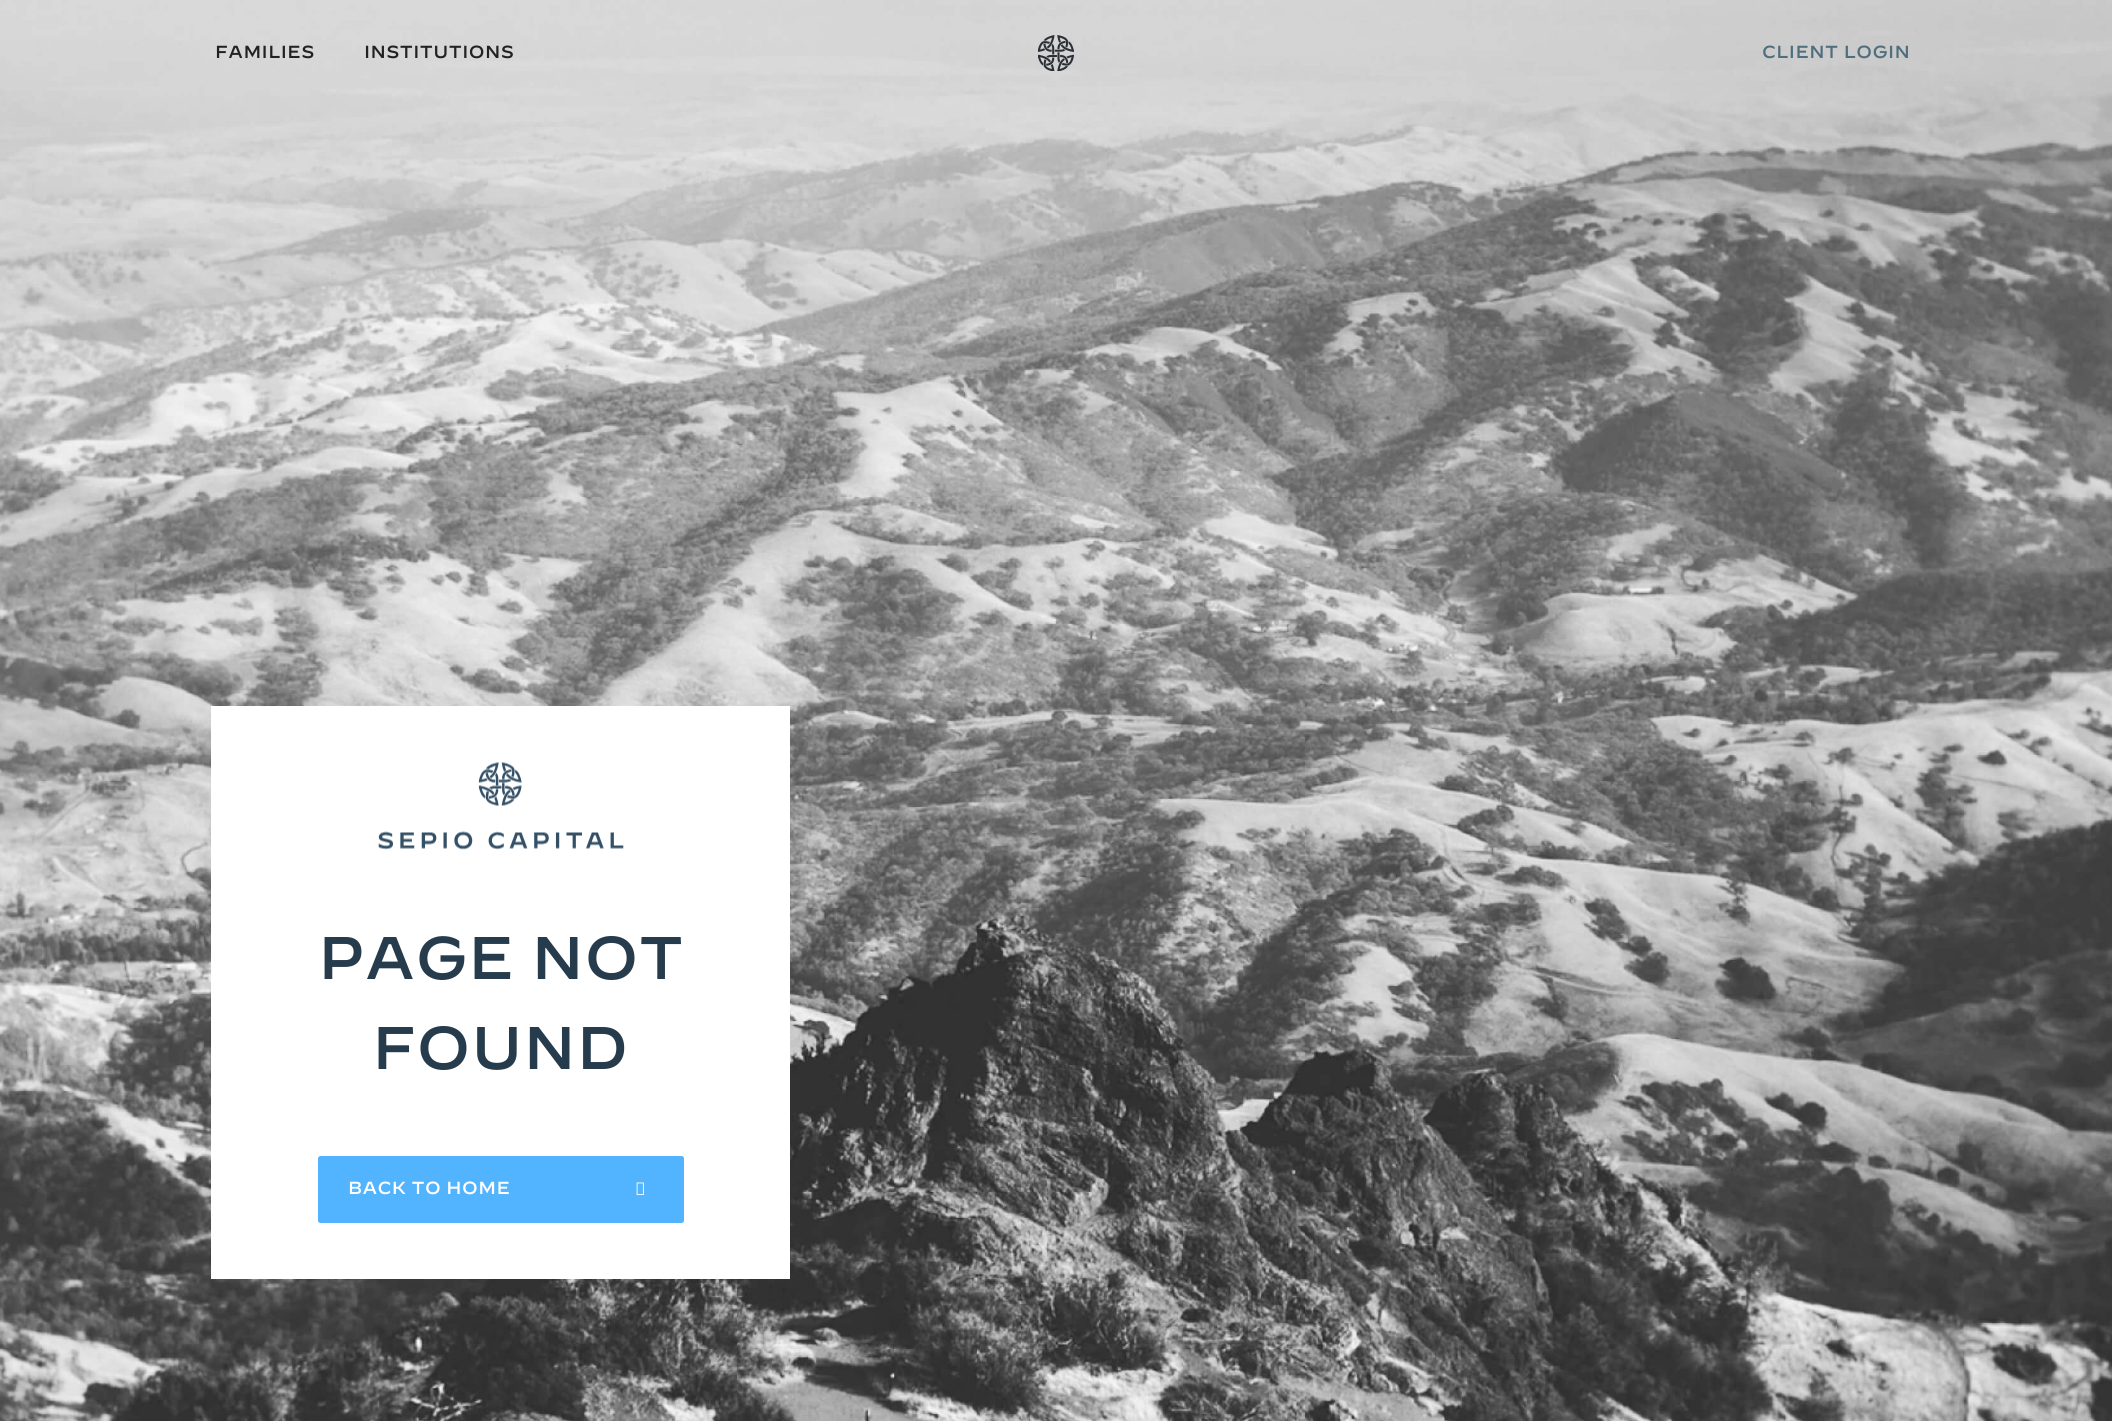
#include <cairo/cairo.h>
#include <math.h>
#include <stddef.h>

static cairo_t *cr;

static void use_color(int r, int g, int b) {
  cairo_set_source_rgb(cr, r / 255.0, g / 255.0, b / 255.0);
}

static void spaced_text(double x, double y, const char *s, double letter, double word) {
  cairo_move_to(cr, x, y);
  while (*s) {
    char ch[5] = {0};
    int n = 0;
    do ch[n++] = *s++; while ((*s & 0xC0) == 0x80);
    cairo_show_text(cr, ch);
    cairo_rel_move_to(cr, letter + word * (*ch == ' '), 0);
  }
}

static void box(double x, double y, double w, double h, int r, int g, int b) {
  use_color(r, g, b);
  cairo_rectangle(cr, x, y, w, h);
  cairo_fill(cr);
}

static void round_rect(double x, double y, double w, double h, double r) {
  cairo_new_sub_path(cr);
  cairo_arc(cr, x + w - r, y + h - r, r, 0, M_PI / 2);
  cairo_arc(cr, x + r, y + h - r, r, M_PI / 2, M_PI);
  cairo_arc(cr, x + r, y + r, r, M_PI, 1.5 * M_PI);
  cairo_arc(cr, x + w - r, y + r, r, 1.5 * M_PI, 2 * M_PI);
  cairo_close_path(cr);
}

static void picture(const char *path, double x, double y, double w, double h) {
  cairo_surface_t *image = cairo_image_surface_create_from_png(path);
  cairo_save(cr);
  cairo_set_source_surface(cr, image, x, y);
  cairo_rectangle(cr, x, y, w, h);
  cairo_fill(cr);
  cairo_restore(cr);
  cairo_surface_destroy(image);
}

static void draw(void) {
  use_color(255, 255, 255);
  cairo_paint(cr);
  picture("img_02.png", 0, 0, 2112, 1421);
  picture("img_01.png", 1038, 35, 36, 36);
  box(211, 706, 579, 573, 255, 255, 255);
  picture("img_03.png", 378, 762, 246, 88);
  use_color(82, 180, 255);
  round_rect(318, 1156, 366, 67, 2.5);
  cairo_fill(cr);
  picture("img_04.png", 636, 1182, 8, 13);
  cairo_select_font_face(cr, "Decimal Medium", CAIRO_FONT_SLANT_NORMAL, CAIRO_FONT_WEIGHT_NORMAL);
  cairo_set_font_size(cr, 17.5);
  use_color(34, 34, 34);
  spaced_text(215, 58, "FAMILIES", 0.4, 0);
  spaced_text(364, 58, "INSTITUTIONS", 0.4, 0);
  use_color(79, 110, 126);
  spaced_text(1762, 58, "CLIENT LOGIN", 0.4, 0);
  cairo_set_font_size(cr, 60);
  use_color(38, 60, 77);
  spaced_text(318, 979, "PAGE NOT", 0.4, 0);
  spaced_text(372, 1069, "FOUND", 0.4, 0);
  cairo_set_font_size(cr, 17.5);
  use_color(255, 255, 255);
  spaced_text(348, 1194, "BACK TO HOME", 0.4, 0);
}

int main(void) {
  cairo_surface_t *surface = cairo_image_surface_create(CAIRO_FORMAT_RGB24, 2112, 1421);
  cr = cairo_create(surface);
  cairo_font_options_t *options = cairo_font_options_create();
  cairo_font_options_set_hint_metrics(options, CAIRO_HINT_METRICS_OFF);
  cairo_font_options_set_hint_style(options, CAIRO_HINT_STYLE_NONE);
  cairo_set_font_options(cr, options);
  cairo_set_miter_limit(cr, 4);
  draw();
  cairo_surface_write_to_png(surface, "out.png");
  cairo_font_options_destroy(options);
  cairo_destroy(cr);
  cairo_surface_destroy(surface);
  return 0;
}
